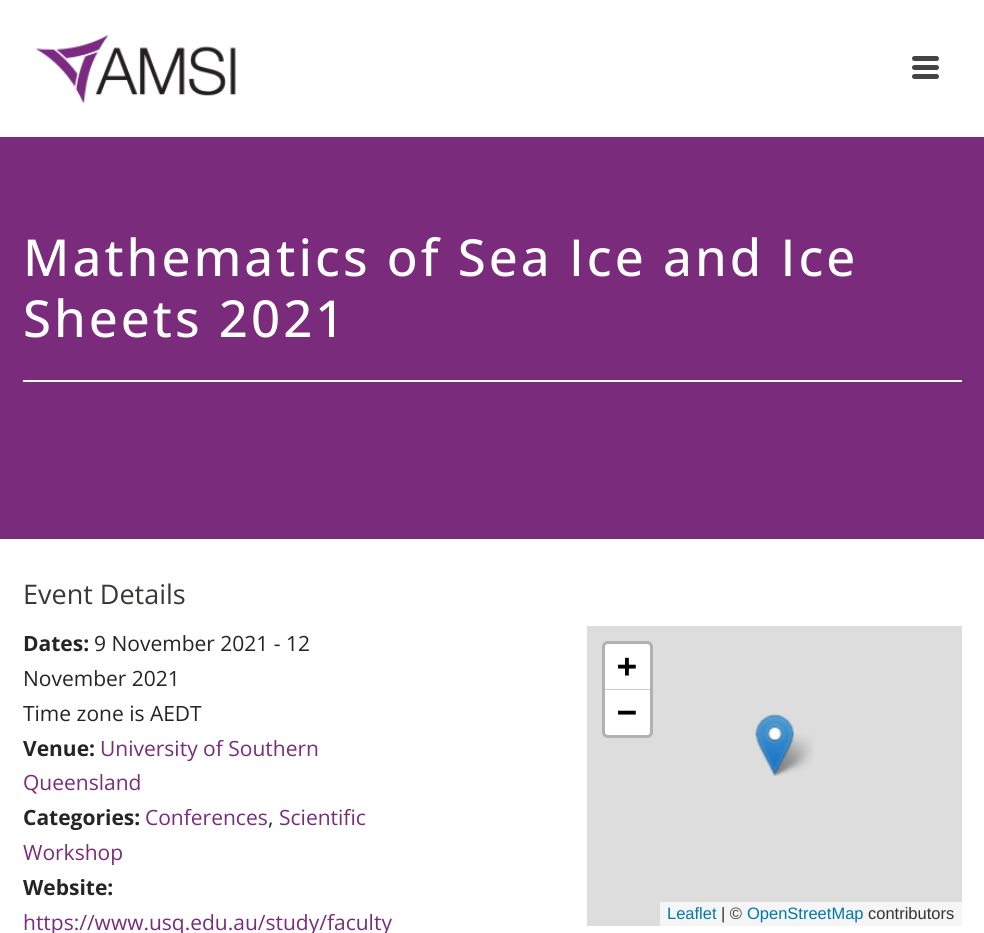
#include <cairo/cairo.h>
#include <math.h>
#include <stddef.h>

static cairo_t *cr;

static void use_color(int r, int g, int b) {
  cairo_set_source_rgb(cr, r / 255.0, g / 255.0, b / 255.0);
}

static void text(double x, double y, const char *s, const char *family, double size, int italic, int bold, int r, int g, int b) {
  cairo_select_font_face(cr, family, italic ? CAIRO_FONT_SLANT_ITALIC : CAIRO_FONT_SLANT_NORMAL,
    bold ? CAIRO_FONT_WEIGHT_BOLD : CAIRO_FONT_WEIGHT_NORMAL);
  cairo_set_font_size(cr, size);
  use_color(r, g, b);
  cairo_move_to(cr, x, y);
  cairo_show_text(cr, s);
}

static void spaced_text(double x, double y, const char *s, double letter, double word) {
  cairo_move_to(cr, x, y);
  while (*s) {
    char ch[5] = {0};
    int n = 0;
    do ch[n++] = *s++; while ((*s & 0xC0) == 0x80);
    cairo_show_text(cr, ch);
    cairo_rel_move_to(cr, letter + word * (*ch == ' '), 0);
  }
}

static void box(double x, double y, double w, double h, int r, int g, int b) {
  use_color(r, g, b);
  cairo_rectangle(cr, x, y, w, h);
  cairo_fill(cr);
}

static void round_rect(double x, double y, double w, double h, double r) {
  cairo_new_sub_path(cr);
  cairo_arc(cr, x + w - r, y + h - r, r, 0, M_PI / 2);
  cairo_arc(cr, x + r, y + h - r, r, M_PI / 2, M_PI);
  cairo_arc(cr, x + r, y + r, r, M_PI, 1.5 * M_PI);
  cairo_arc(cr, x + w - r, y + r, r, 1.5 * M_PI, 2 * M_PI);
  cairo_close_path(cr);
}

static void picture(const char *path, double x, double y, double w, double h) {
  cairo_surface_t *image = cairo_image_surface_create_from_png(path);
  cairo_save(cr);
  cairo_set_source_surface(cr, image, x, y);
  cairo_rectangle(cr, x, y, w, h);
  cairo_fill(cr);
  cairo_restore(cr);
  cairo_surface_destroy(image);
}

static void draw(void) {
  use_color(255, 255, 255);
  cairo_paint(cr);
  box(0, 137, 984, 402, 122, 43, 124);
  picture("img_01.png", 36, 35, 200, 68);
  use_color(68, 68, 68);
  round_rect(912, 56, 27, 5, 2.5);
  cairo_fill(cr);
  round_rect(912, 65, 27, 5, 2.5);
  cairo_fill(cr);
  round_rect(912, 74, 27, 5, 2.5);
  cairo_fill(cr);
  box(23, 380, 939, 2, 255, 255, 255);
  box(587, 626, 375, 300, 221, 221, 221);
  round_rect(603.5, 642.5, 48, 94, 4.5);
  use_color(177, 177, 177);
  cairo_set_line_width(cr, 3);
  cairo_stroke(cr);
  use_color(255, 255, 255);
  cairo_new_path(cr);
  cairo_move_to(cr, 608, 644);
  cairo_line_to(cr, 647, 644);
  cairo_curve_to(cr, 648.5, 644, 650, 645.5, 650, 647);
  cairo_line_to(cr, 650, 690);
  cairo_line_to(cr, 605, 690);
  cairo_line_to(cr, 605, 647);
  cairo_curve_to(cr, 605, 645.5, 606.5, 644, 608, 644);
  cairo_close_path(cr);
  cairo_fill(cr);
  box(605, 689, 45, 1, 204, 204, 204);
  use_color(255, 255, 255);
  cairo_new_path(cr);
  cairo_move_to(cr, 605, 690);
  cairo_line_to(cr, 650, 690);
  cairo_line_to(cr, 650, 732);
  cairo_curve_to(cr, 650, 733.5, 648.5, 735, 647, 735);
  cairo_line_to(cr, 608, 735);
  cairo_curve_to(cr, 606.5, 735, 605, 733.5, 605, 732);
  cairo_close_path(cr);
  cairo_fill(cr);
  box(660, 902, 302, 24, 245, 245, 245);
  picture("img_03.png", 769, 733, 45, 43);
  picture("img_02.png", 755, 714, 39, 62);
  cairo_select_font_face(cr, "Open Sans Medium", CAIRO_FONT_SLANT_NORMAL, CAIRO_FONT_WEIGHT_NORMAL);
  cairo_set_font_size(cr, 51);
  use_color(255, 255, 255);
  spaced_text(23, 276, "Mathematics of Sea Ice and Ice", 3, 0);
  spaced_text(23, 337, "Sheets 2021", 3, 0);
  text(23, 604, "Event Details", "Open Sans", 27, 0, 0, 57, 56, 54);
  text(23, 651, "Dates:", "Open Sans", 21, 0, 1, 37, 37, 37);
  text(94, 651, "9 November 2021 - 12", "Open Sans", 21, 0, 0, 37, 37, 37);
  text(23, 686, "November 2021", "Open Sans", 21, 0, 0, 37, 37, 37);
  text(23, 721, "Time zone is AEDT", "Open Sans", 21, 0, 0, 37, 37, 37);
  text(23, 756, "Venue:", "Open Sans", 21, 0, 1, 37, 37, 37);
  text(100, 756, "University of Southern", "Open Sans", 21, 0, 0, 122, 43, 124);
  text(23, 790, "Queensland", "Open Sans", 21, 0, 0, 122, 43, 124);
  text(23, 825, "Categories:", "Open Sans", 21, 0, 1, 37, 37, 37);
  text(145, 825, "Conferences", "Open Sans", 21, 0, 0, 122, 43, 124);
  text(268, 825, ",", "Open Sans", 21, 0, 0, 37, 37, 37);
  text(279, 825, "Scientific", "Open Sans", 21, 0, 0, 122, 43, 124);
  text(23, 860, "Workshop", "Open Sans", 21, 0, 0, 122, 43, 124);
  text(23, 895, "Website:", "Open Sans", 21, 0, 1, 37, 37, 37);
  text(23, 930, "https://www.usq.edu.au/study/faculty", "Open Sans", 21, 0, 0, 122, 43, 124);
  text(617, 677, "+", "DejaVu Sans Mono", 33, 0, 1, 0, 0, 0);
  text(617, 723, "−", "DejaVu Sans Mono", 33, 0, 1, 0, 0, 0);
  text(667, 919, "Leaflet", "Liberation Sans", 16.5, 0, 0, 0, 120, 168);
  text(721, 919, "| ©", "Liberation Sans", 16.5, 0, 0, 51, 51, 51);
  text(747, 919, "OpenStreetMap", "Liberation Sans", 16.5, 0, 0, 0, 120, 168);
  text(868, 919, "contributors", "Liberation Sans", 16.5, 0, 0, 51, 51, 51);
}

int main(void) {
  cairo_surface_t *surface = cairo_image_surface_create(CAIRO_FORMAT_RGB24, 984, 933);
  cr = cairo_create(surface);
  cairo_font_options_t *options = cairo_font_options_create();
  cairo_font_options_set_hint_metrics(options, CAIRO_HINT_METRICS_OFF);
  cairo_font_options_set_hint_style(options, CAIRO_HINT_STYLE_NONE);
  cairo_set_font_options(cr, options);
  cairo_set_miter_limit(cr, 4);
  draw();
  cairo_surface_write_to_png(surface, "out.png");
  cairo_font_options_destroy(options);
  cairo_destroy(cr);
  cairo_surface_destroy(surface);
  return 0;
}
